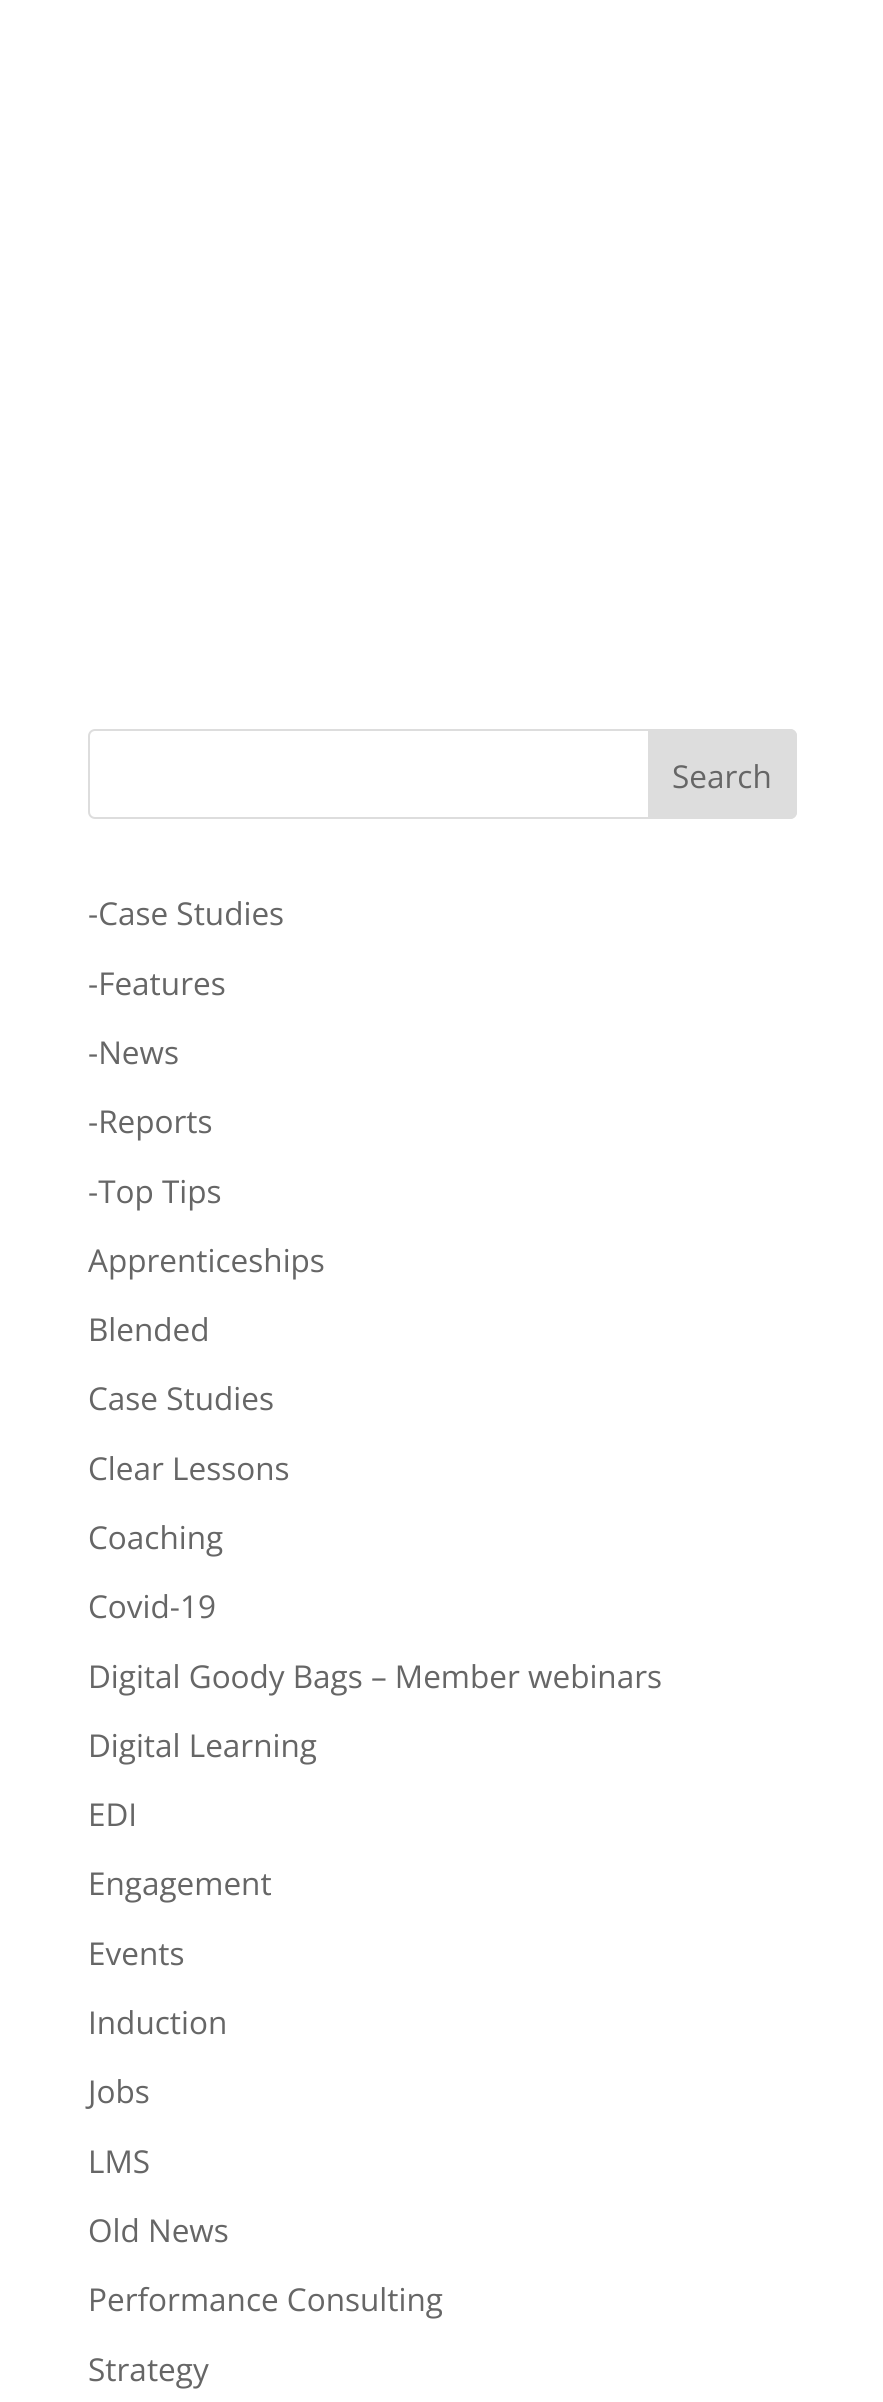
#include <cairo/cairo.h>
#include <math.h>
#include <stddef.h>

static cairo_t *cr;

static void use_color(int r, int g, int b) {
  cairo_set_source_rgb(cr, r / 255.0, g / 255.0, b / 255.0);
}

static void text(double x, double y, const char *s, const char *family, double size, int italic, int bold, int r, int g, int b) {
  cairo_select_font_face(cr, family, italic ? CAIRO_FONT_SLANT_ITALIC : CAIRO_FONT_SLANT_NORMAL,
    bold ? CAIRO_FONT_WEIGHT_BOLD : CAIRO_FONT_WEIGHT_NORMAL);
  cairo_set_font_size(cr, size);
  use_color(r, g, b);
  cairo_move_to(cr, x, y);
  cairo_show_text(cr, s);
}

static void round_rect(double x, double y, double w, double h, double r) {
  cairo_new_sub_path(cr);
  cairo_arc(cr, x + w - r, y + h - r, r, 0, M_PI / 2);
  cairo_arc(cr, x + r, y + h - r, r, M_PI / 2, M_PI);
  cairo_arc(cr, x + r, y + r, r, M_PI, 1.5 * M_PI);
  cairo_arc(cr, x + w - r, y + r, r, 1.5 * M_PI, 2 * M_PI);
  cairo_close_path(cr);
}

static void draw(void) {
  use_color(255, 255, 255);
  cairo_paint(cr);
  round_rect(89, 730, 707, 88, 6);
  use_color(221, 221, 221);
  cairo_stroke(cr);
  cairo_new_path(cr);
  cairo_move_to(cr, 649, 730);
  cairo_line_to(cr, 790, 730);
  cairo_curve_to(cr, 793.5, 730, 796, 732.5, 796, 736);
  cairo_line_to(cr, 796, 812);
  cairo_curve_to(cr, 796, 815.5, 793.5, 818, 790, 818);
  cairo_line_to(cr, 649, 818);
  cairo_close_path(cr);
  cairo_fill_preserve(cr);
  cairo_stroke(cr);
  text(672, 788, "Search", "Open Sans", 31.5, 0, 0, 102, 102, 102);
  text(88, 925, "-Case Studies", "Open Sans", 31.5, 0, 0, 102, 102, 102);
  text(88, 995, "-Features", "Open Sans", 31.5, 0, 0, 102, 102, 102);
  text(88, 1064, "-News", "Open Sans", 31.5, 0, 0, 102, 102, 102);
  text(88, 1133, "-Reports", "Open Sans", 31.5, 0, 0, 102, 102, 102);
  text(88, 1203, "-Top Tips", "Open Sans", 31.5, 0, 0, 102, 102, 102);
  text(88, 1272, "Apprenticeships", "Open Sans", 31.5, 0, 0, 102, 102, 102);
  text(88, 1341, "Blended", "Open Sans", 31.5, 0, 0, 102, 102, 102);
  text(88, 1410, "Case Studies", "Open Sans", 31.5, 0, 0, 102, 102, 102);
  text(88, 1480, "Clear Lessons", "Open Sans", 31.5, 0, 0, 102, 102, 102);
  text(88, 1549, "Coaching", "Open Sans", 31.5, 0, 0, 102, 102, 102);
  text(88, 1618, "Covid-19", "Open Sans", 31.5, 0, 0, 102, 102, 102);
  text(88, 1688, "Digital Goody Bags – Member webinars", "Open Sans", 31.5, 0, 0, 102, 102, 102);
  text(88, 1757, "Digital Learning", "Open Sans", 31.5, 0, 0, 102, 102, 102);
  text(88, 1826, "EDI", "Open Sans", 31.5, 0, 0, 102, 102, 102);
  text(88, 1895, "Engagement", "Open Sans", 31.5, 0, 0, 102, 102, 102);
  text(88, 1965, "Events", "Open Sans", 31.5, 0, 0, 102, 102, 102);
  text(88, 2034, "Induction", "Open Sans", 31.5, 0, 0, 102, 102, 102);
  text(88, 2103, "Jobs", "Open Sans", 31.5, 0, 0, 102, 102, 102);
  text(88, 2173, "LMS", "Open Sans", 31.5, 0, 0, 102, 102, 102);
  text(88, 2242, "Old News", "Open Sans", 31.5, 0, 0, 102, 102, 102);
  text(88, 2311, "Performance Consulting", "Open Sans", 31.5, 0, 0, 102, 102, 102);
  text(88, 2381, "Strategy", "Open Sans", 31.5, 0, 0, 102, 102, 102);
}

int main(void) {
  cairo_surface_t *surface = cairo_image_surface_create(CAIRO_FORMAT_RGB24, 883, 2402);
  cr = cairo_create(surface);
  cairo_font_options_t *options = cairo_font_options_create();
  cairo_font_options_set_hint_metrics(options, CAIRO_HINT_METRICS_OFF);
  cairo_font_options_set_hint_style(options, CAIRO_HINT_STYLE_NONE);
  cairo_set_font_options(cr, options);
  cairo_set_miter_limit(cr, 4);
  draw();
  cairo_surface_write_to_png(surface, "out.png");
  cairo_font_options_destroy(options);
  cairo_destroy(cr);
  cairo_surface_destroy(surface);
  return 0;
}
